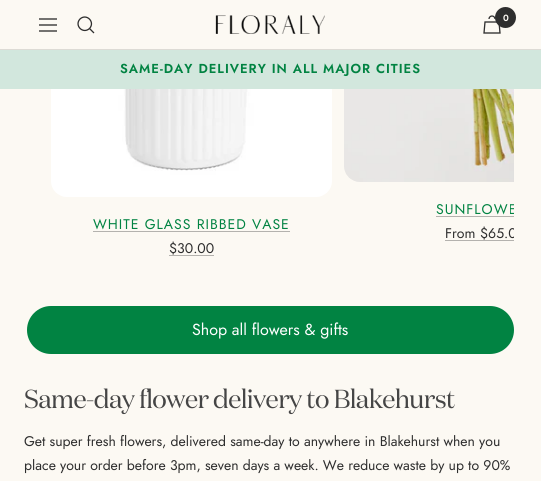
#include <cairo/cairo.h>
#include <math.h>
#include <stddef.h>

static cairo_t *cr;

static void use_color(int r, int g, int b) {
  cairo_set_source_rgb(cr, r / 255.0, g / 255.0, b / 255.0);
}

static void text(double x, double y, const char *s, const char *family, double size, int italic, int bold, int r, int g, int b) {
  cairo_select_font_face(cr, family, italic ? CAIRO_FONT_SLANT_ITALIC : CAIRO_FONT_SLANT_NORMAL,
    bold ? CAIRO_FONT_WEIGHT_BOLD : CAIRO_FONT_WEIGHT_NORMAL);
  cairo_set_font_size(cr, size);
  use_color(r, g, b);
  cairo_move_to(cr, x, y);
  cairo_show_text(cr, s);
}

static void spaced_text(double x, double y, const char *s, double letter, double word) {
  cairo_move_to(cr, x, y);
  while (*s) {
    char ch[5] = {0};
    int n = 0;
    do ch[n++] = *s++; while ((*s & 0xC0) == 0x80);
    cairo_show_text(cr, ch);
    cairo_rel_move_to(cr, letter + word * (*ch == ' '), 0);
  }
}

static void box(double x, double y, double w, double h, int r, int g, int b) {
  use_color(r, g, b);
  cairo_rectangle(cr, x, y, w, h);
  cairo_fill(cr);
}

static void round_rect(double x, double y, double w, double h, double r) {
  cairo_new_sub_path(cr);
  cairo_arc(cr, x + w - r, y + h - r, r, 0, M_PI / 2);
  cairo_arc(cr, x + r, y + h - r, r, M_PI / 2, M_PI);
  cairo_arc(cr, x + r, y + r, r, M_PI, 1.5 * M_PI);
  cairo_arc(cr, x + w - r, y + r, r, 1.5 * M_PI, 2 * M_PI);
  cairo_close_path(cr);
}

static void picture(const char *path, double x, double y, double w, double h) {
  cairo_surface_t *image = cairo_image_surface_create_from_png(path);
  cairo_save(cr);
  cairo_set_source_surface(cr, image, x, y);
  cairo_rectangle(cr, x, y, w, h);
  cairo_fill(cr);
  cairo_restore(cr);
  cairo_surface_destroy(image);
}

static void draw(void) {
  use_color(252, 249, 243);
  cairo_paint(cr);
  box(0, 49, 541, 1, 221, 219, 213);
  cairo_new_path(cr);
  cairo_move_to(cr, 39, 19);
  cairo_line_to(cr, 57, 19);
  cairo_move_to(cr, 39, 31);
  cairo_line_to(cr, 57, 31);
  cairo_close_path(cr);
  cairo_move_to(cr, 39, 25);
  cairo_line_to(cr, 57, 25);
  cairo_close_path(cr);
  cairo_move_to(cr, 89.5, 28.5);
  cairo_curve_to(cr, 95.5, 22, 86.5, 13, 80, 19);
  cairo_curve_to(cr, 74, 25.5, 83, 34.5, 89.5, 28.5);
  cairo_close_path(cr);
  cairo_move_to(cr, 89.5, 28.5);
  cairo_line_to(cr, 94, 33);
  use_color(46, 46, 46);
  cairo_set_line_width(cr, 1.3);
  cairo_stroke(cr);
  picture("img_01.png", 215, 15, 110, 19);
  picture("img_02.png", 483, 15, 18, 19);
  cairo_arc(cr, 505.5, 17.5, 10.5, 0, 2 * M_PI);
  cairo_fill(cr);
  box(0, 50, 541, 39, 210, 231, 221);
  picture("img_03.png", 51, 89, 281, 108);
  box(93, 231, 197, 1, 180, 178, 174);
  box(169, 255, 45, 1, 180, 178, 174);
  picture("img_04.png", 344, 89, 170, 93);
  box(436, 216, 78, 1, 180, 178, 174);
  box(445, 240, 69, 1, 180, 178, 174);
  use_color(1, 131, 66);
  round_rect(27, 306, 487, 48, 24);
  cairo_fill(cr);
  text(503, 21, "0", "Jost SemiBold", 9, 0, 0, 252, 249, 243);
  cairo_set_font_size(cr, 13);
  use_color(1, 131, 66);
  spaced_text(120, 73, "SAME-DAY DELIVERY IN ALL MAJOR CITIES", 1, 0);
  cairo_select_font_face(cr, "Jost", CAIRO_FONT_SLANT_NORMAL, CAIRO_FONT_WEIGHT_NORMAL);
  cairo_set_font_size(cr, 14);
  spaced_text(93, 229, "WHITE GLASS RIBBED VASE", 1, 0);
  text(169, 253, "$30.00", "Jost", 14, 0, 0, 46, 46, 46);
  cairo_save(cr);
  cairo_rectangle(cr, 27, 0, 487, 270);
  cairo_clip(cr);
  use_color(1, 131, 66);
  spaced_text(436, 214, "SUNFLOWE", 1, 0);
  cairo_restore(cr);
  text(445, 238, "From", "Jost", 14, 0, 0, 46, 46, 46);
  cairo_save(cr);
  cairo_rectangle(cr, 27, 0, 487, 270);
  cairo_clip(cr);
  text(480, 238, "$65.0", "Jost", 14, 0, 0, 46, 46, 46);
  cairo_restore(cr);
  text(192, 335, "Shop all flowers & gifts", "Jost", 16, 0, 0, 255, 255, 255);
  cairo_select_font_face(cr, "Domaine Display", CAIRO_FONT_SLANT_NORMAL, CAIRO_FONT_WEIGHT_NORMAL);
  cairo_set_font_size(cr, 26);
  use_color(69, 69, 69);
  spaced_text(24, 408, "Same-day flower delivery to Blakehurst", -0.6, 0);
  text(24, 446, "Get super fresh flowers, delivered same-day to anywhere in Blakehurst when you", "Jost", 14, 0, 0, 46, 46, 46);
  text(24, 470, "place your order before 3pm, seven days a week. We reduce waste by up to 90%", "Jost", 14, 0, 0, 46, 46, 46);
}

int main(void) {
  cairo_surface_t *surface = cairo_image_surface_create(CAIRO_FORMAT_RGB24, 541, 481);
  cr = cairo_create(surface);
  cairo_font_options_t *options = cairo_font_options_create();
  cairo_font_options_set_hint_metrics(options, CAIRO_HINT_METRICS_OFF);
  cairo_font_options_set_hint_style(options, CAIRO_HINT_STYLE_NONE);
  cairo_set_font_options(cr, options);
  cairo_set_miter_limit(cr, 4);
  draw();
  cairo_surface_write_to_png(surface, "out.png");
  cairo_font_options_destroy(options);
  cairo_destroy(cr);
  cairo_surface_destroy(surface);
  return 0;
}
